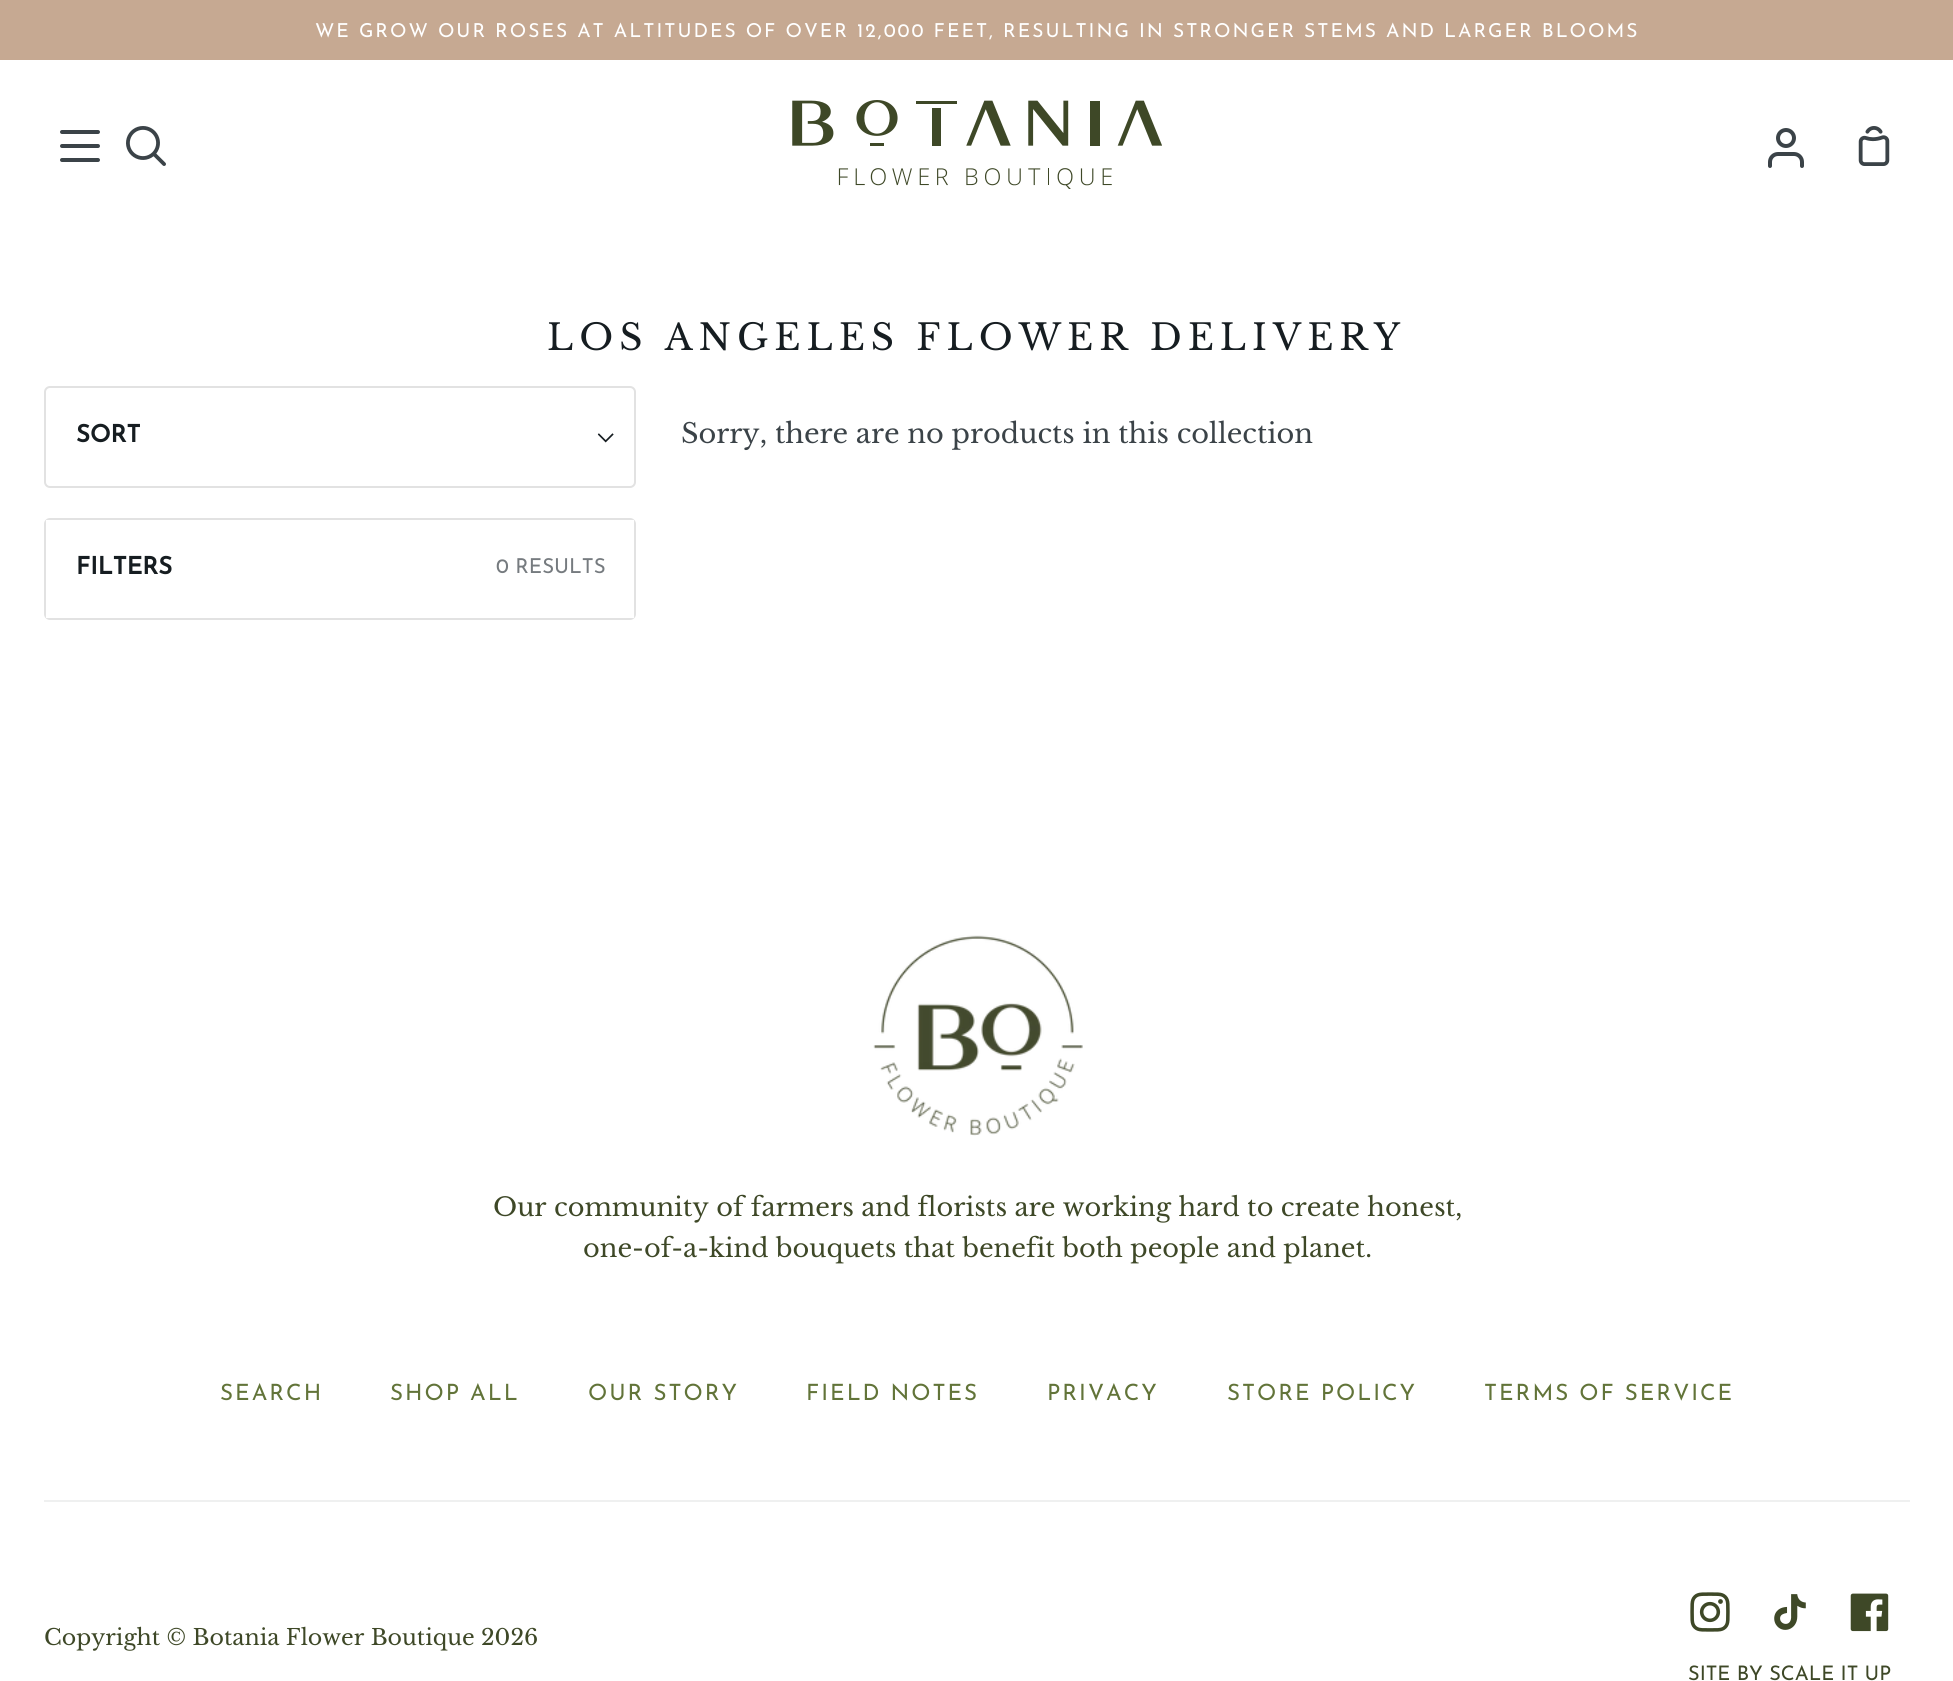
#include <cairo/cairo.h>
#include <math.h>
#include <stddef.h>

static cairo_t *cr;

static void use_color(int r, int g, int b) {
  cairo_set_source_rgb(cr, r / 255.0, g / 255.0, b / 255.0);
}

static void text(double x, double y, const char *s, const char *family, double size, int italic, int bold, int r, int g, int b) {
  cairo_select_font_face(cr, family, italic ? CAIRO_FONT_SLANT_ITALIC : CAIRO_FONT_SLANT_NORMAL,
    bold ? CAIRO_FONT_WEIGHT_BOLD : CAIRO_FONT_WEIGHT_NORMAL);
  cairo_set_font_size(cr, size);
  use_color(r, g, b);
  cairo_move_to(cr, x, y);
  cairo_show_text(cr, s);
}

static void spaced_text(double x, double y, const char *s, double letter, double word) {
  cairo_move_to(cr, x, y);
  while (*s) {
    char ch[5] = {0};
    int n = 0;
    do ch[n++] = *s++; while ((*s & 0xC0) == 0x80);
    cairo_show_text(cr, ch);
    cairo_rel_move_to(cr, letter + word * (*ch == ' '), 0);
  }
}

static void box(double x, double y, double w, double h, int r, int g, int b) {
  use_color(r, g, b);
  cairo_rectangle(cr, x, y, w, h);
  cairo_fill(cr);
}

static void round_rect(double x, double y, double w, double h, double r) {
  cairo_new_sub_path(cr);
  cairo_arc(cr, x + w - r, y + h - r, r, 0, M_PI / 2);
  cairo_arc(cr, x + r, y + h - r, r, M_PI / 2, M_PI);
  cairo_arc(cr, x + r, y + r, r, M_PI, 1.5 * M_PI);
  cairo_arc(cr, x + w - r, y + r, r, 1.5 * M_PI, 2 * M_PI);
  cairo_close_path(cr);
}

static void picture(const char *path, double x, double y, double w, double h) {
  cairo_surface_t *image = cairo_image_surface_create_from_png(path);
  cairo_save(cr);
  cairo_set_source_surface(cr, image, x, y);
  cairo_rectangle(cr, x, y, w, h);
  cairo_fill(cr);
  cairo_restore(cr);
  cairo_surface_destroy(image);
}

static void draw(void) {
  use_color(255, 255, 255);
  cairo_paint(cr);
  box(0, 0, 1953, 60, 198, 169, 146);
  use_color(59, 67, 72);
  round_rect(60, 130, 40, 4, 2);
  cairo_fill(cr);
  round_rect(60, 144, 40, 4, 2);
  cairo_fill(cr);
  round_rect(60, 158, 40, 4, 2);
  cairo_fill(cr);
  picture("img_01.png", 126, 126, 40, 40);
  picture("img_02.png", 792, 100, 370, 89);
  picture("img_03.png", 1768, 128, 36, 40);
  picture("img_04.png", 1858, 126, 32, 40);
  round_rect(45, 387, 590, 100, 5);
  use_color(226, 226, 226);
  cairo_stroke(cr);
  picture("img_05.png", 597, 433, 17, 10);
  round_rect(45, 519, 590, 100, 5);
  cairo_stroke(cr);
  box(46, 520, 588, 98, 255, 255, 255);
  picture("img_06.png", 873, 935, 210, 201);
  box(44, 1500, 1866, 2, 239, 240, 240);
  picture("img_07.png", 1690, 1592, 40, 40);
  picture("img_08.png", 1774, 1594, 32, 36);
  picture("img_09.png", 1850, 1593, 39, 39);
  cairo_select_font_face(cr, "Josefin Sans", CAIRO_FONT_SLANT_NORMAL, CAIRO_FONT_WEIGHT_NORMAL);
  cairo_set_font_size(cr, 19.2);
  use_color(255, 255, 255);
  spaced_text(315, 37, "WE GROW OUR ROSES AT ALTITUDES OF OVER 12,000 FEET, RESULTING IN STRONGER STEMS AND LARGER BLOOMS", 2, 0);
  cairo_select_font_face(cr, "Libre Baskerville", CAIRO_FONT_SLANT_NORMAL, CAIRO_FONT_WEIGHT_NORMAL);
  cairo_set_font_size(cr, 36);
  use_color(22, 29, 33);
  spaced_text(547, 350, "LOS ANGELES FLOWER DELIVERY", 6, 0);
  text(76, 442, "SORT", "Josefin Sans", 24, 0, 1, 22, 29, 33);
  text(76, 574, "FILTERS", "Josefin Sans", 24, 0, 1, 22, 29, 33);
  text(496, 573, "0 RESULTS", "Josefin Sans", 20.5, 0, 0, 118, 123, 127);
  text(681, 443, "Sorry, there are no products in this collection", "Libre Baskerville", 27.2, 0, 0, 59, 67, 72);
  text(493, 1216, "Our community of farmers and florists are working hard to create honest,", "Libre Baskerville", 25.6, 0, 0, 62, 72, 39);
  text(583, 1257, "one-of-a-kind bouquets that benefit both people and planet.", "Libre Baskerville", 25.6, 0, 0, 62, 72, 39);
  cairo_select_font_face(cr, "Josefin Sans", CAIRO_FONT_SLANT_NORMAL, CAIRO_FONT_WEIGHT_NORMAL);
  cairo_set_font_size(cr, 22.4);
  use_color(98, 116, 57);
  spaced_text(220, 1400, "SEARCH", 2, 0);
  spaced_text(390, 1400, "SHOP ALL", 2, 0);
  spaced_text(588, 1400, "OUR STORY", 2, 0);
  spaced_text(806, 1400, "FIELD NOTES", 2, 0);
  spaced_text(1047, 1400, "PRIVACY", 2, 0);
  spaced_text(1227, 1400, "STORE POLICY", 2, 0);
  spaced_text(1484, 1400, "TERMS OF SERVICE", 2, 0);
  text(44, 1645, "Copyright © Botania Flower Boutique 2026", "Libre Baskerville", 22.1, 0, 0, 62, 72, 39);
  text(1688, 1680, "SITE BY SCALE IT UP", "Josefin Sans", 20, 0, 0, 62, 72, 39);
}

int main(void) {
  cairo_surface_t *surface = cairo_image_surface_create(CAIRO_FORMAT_RGB24, 1953, 1681);
  cr = cairo_create(surface);
  cairo_font_options_t *options = cairo_font_options_create();
  cairo_font_options_set_hint_metrics(options, CAIRO_HINT_METRICS_OFF);
  cairo_font_options_set_hint_style(options, CAIRO_HINT_STYLE_NONE);
  cairo_set_font_options(cr, options);
  cairo_set_miter_limit(cr, 4);
  draw();
  cairo_surface_write_to_png(surface, "out.png");
  cairo_font_options_destroy(options);
  cairo_destroy(cr);
  cairo_surface_destroy(surface);
  return 0;
}
